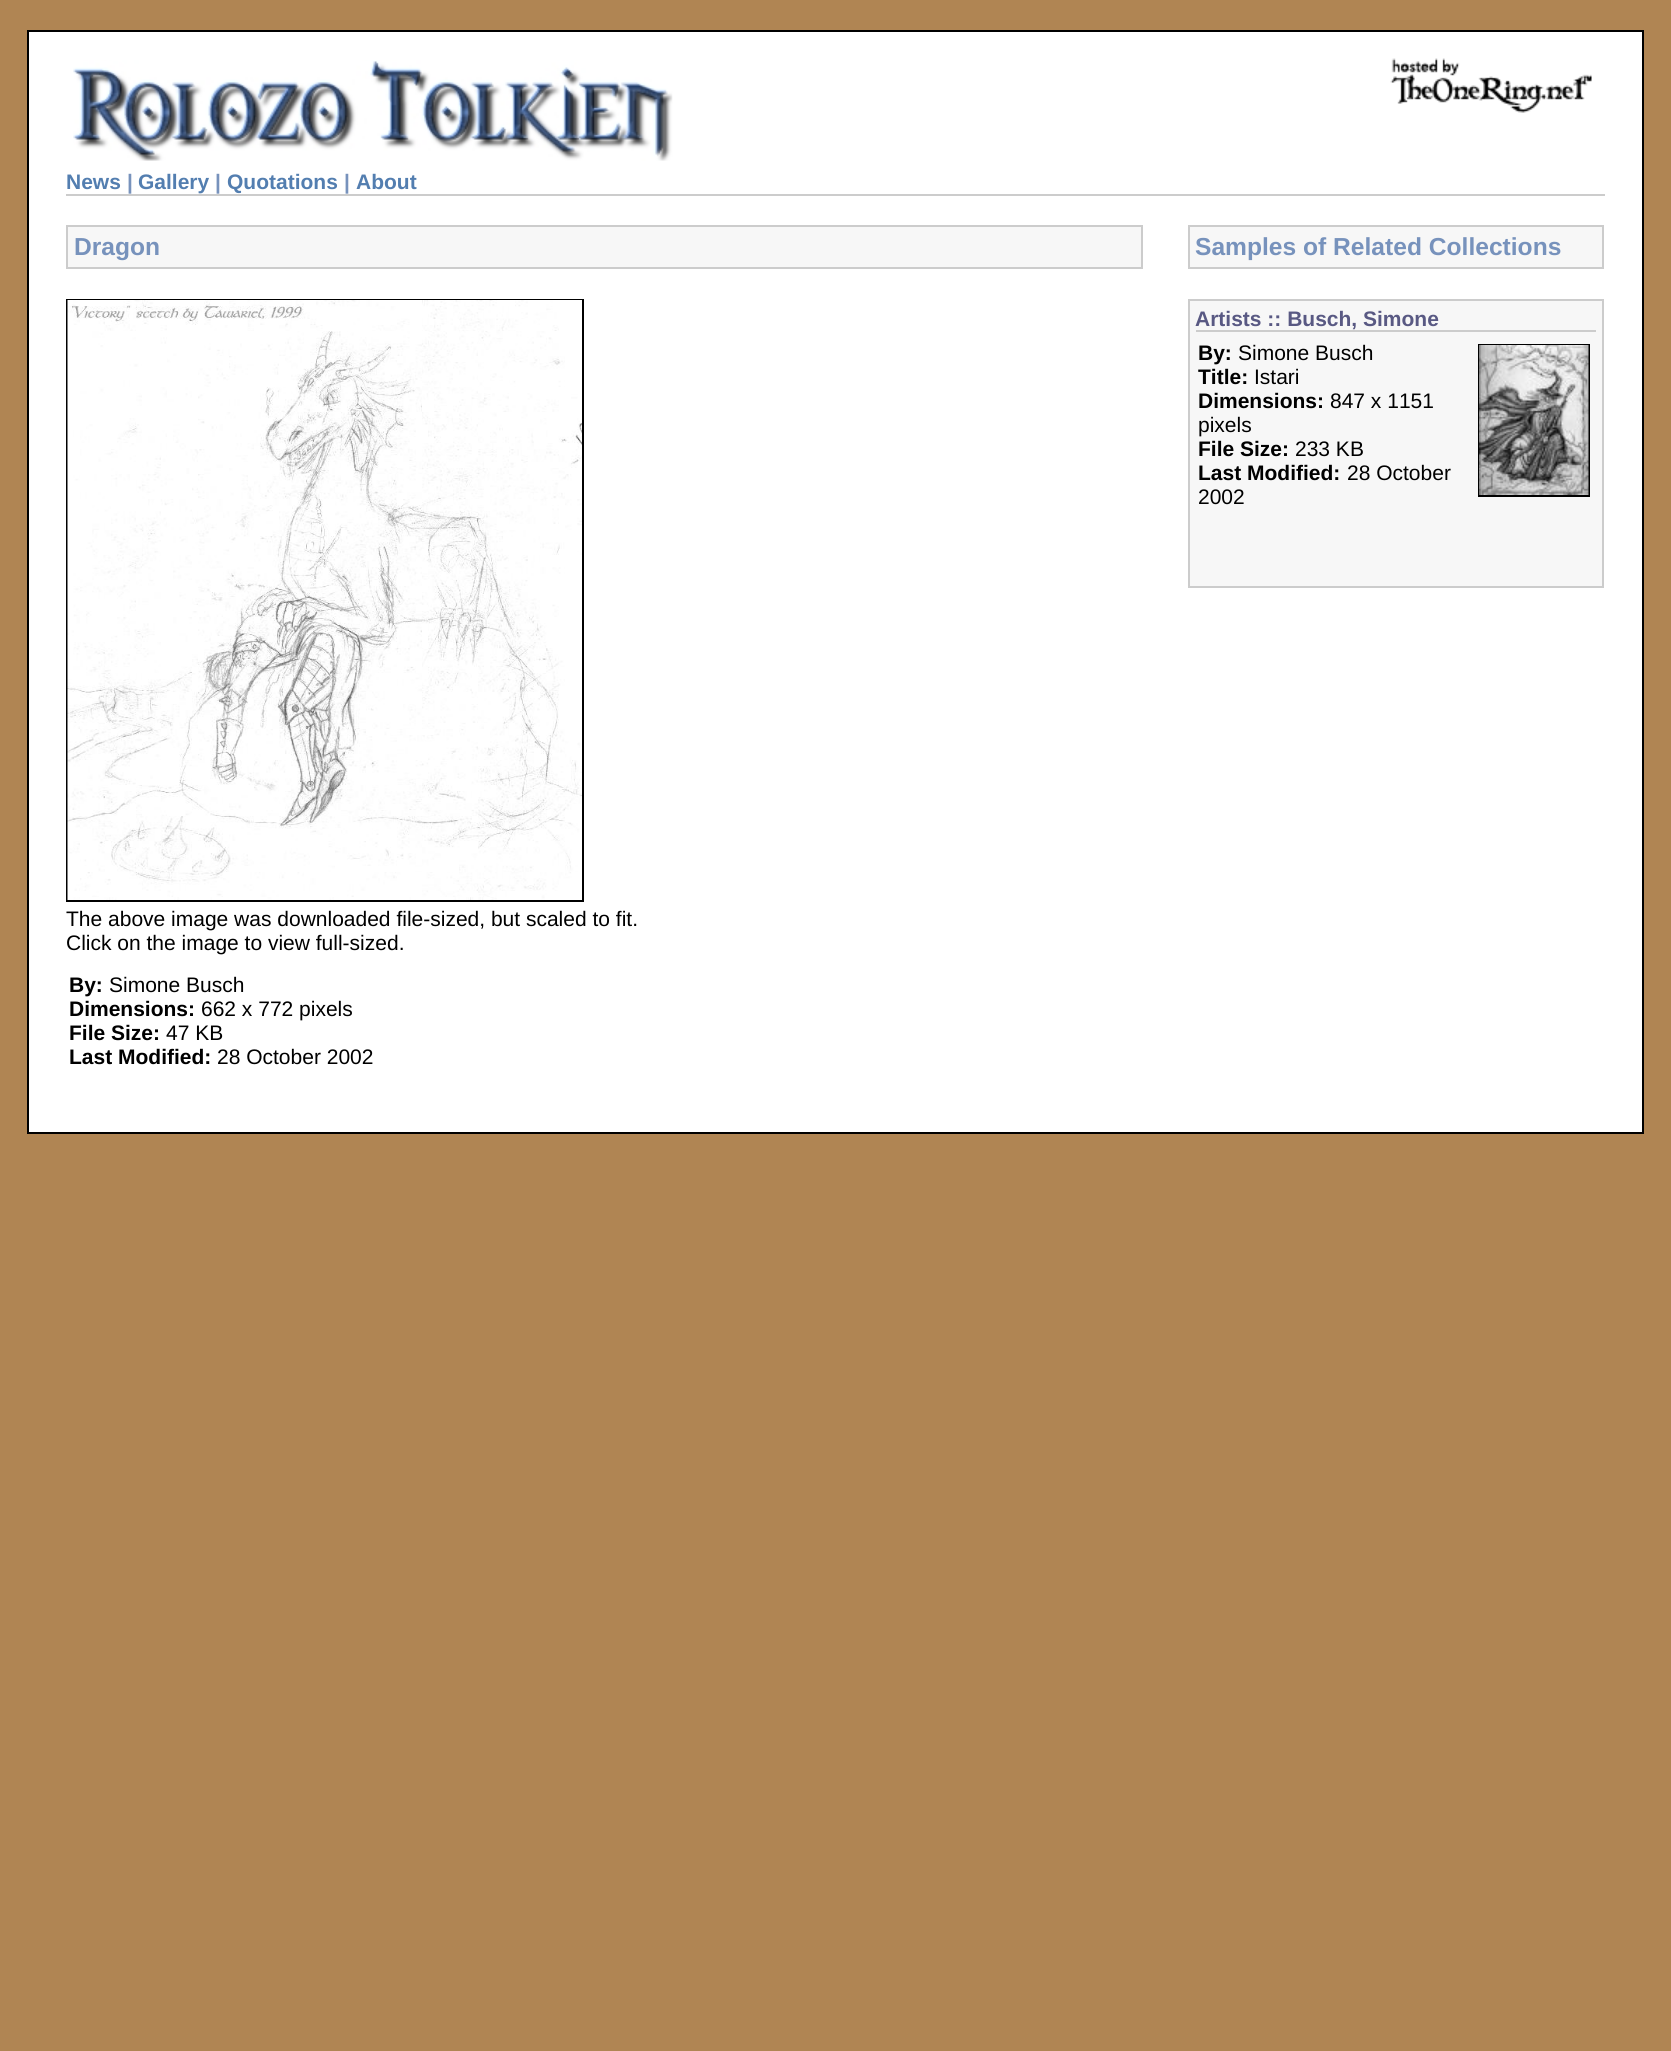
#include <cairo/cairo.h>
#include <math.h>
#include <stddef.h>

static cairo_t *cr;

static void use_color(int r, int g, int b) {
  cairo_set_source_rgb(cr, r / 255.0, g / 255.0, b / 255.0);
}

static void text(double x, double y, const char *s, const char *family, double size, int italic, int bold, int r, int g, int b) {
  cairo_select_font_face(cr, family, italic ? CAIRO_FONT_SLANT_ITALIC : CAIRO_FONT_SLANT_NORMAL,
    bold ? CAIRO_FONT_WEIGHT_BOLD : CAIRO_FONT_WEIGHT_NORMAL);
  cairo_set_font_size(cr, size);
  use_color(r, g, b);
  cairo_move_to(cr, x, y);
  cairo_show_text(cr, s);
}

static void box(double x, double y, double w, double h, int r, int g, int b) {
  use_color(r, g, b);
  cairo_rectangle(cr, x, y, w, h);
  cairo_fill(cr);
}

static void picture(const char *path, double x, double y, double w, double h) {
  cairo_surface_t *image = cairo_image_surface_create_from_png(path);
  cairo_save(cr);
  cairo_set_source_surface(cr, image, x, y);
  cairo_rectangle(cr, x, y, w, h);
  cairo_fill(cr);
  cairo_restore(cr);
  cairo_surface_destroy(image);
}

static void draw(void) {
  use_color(176, 133, 83);
  cairo_paint(cr);
  use_color(255, 255, 255);
  cairo_rectangle(cr, 28, 31, 1615, 1102);
  cairo_fill_preserve(cr);
  use_color(0, 0, 0);
  cairo_stroke(cr);
  picture("img_01.png", 73, 60, 600, 101);
  picture("img_02.png", 1390, 58, 202, 55);
  box(66, 194, 1539, 2, 204, 204, 204);
  use_color(247, 247, 247);
  cairo_rectangle(cr, 67, 226, 1075, 42);
  cairo_fill_preserve(cr);
  use_color(204, 204, 204);
  cairo_stroke(cr);
  cairo_rectangle(cr, 67, 300, 516, 601);
  use_color(0, 0, 0);
  cairo_stroke(cr);
  picture("img_03.png", 67, 300, 515, 600);
  use_color(247, 247, 247);
  cairo_rectangle(cr, 1189, 226, 414, 42);
  cairo_fill_preserve(cr);
  use_color(204, 204, 204);
  cairo_stroke(cr);
  use_color(247, 247, 247);
  cairo_rectangle(cr, 1189, 300, 414, 287);
  cairo_fill_preserve(cr);
  use_color(204, 204, 204);
  cairo_stroke(cr);
  box(1196, 330, 400, 2, 204, 204, 204);
  cairo_rectangle(cr, 1479, 345, 110, 151);
  use_color(0, 0, 0);
  cairo_stroke(cr);
  picture("img_04.png", 1479, 345, 110, 150);
  text(66, 189, "News", "Liberation Sans", 21, 0, 1, 83, 126, 176);
  text(127, 189, "|", "Liberation Sans", 21, 0, 1, 119, 146, 188);
  text(138, 189, "Gallery", "Liberation Sans", 21, 0, 1, 83, 126, 176);
  text(215, 189, "|", "Liberation Sans", 21, 0, 1, 119, 146, 188);
  text(227, 189, "Quotations", "Liberation Sans", 21, 0, 1, 83, 126, 176);
  text(344, 189, "|", "Liberation Sans", 21, 0, 1, 119, 146, 188);
  text(356, 189, "About", "Liberation Sans", 21, 0, 1, 83, 126, 176);
  text(74, 255, "Dragon", "Liberation Sans", 24.6, 0, 1, 119, 146, 188);
  text(66, 926, "The above image was downloaded file-sized, but scaled to fit.", "Liberation Sans", 21, 0, 0, 0, 0, 0);
  text(66, 950, "Click on the image to view full-sized.", "Liberation Sans", 21, 0, 0, 0, 0, 0);
  text(69, 992, "By:", "Liberation Sans", 21, 0, 1, 0, 0, 0);
  text(109, 992, "Simone Busch", "Liberation Sans", 21, 0, 0, 0, 0, 0);
  text(69, 1016, "Dimensions:", "Liberation Sans", 21, 0, 1, 0, 0, 0);
  text(201, 1016, "662 x 772 pixels", "Liberation Sans", 21, 0, 0, 0, 0, 0);
  text(69, 1040, "File Size:", "Liberation Sans", 21, 0, 1, 0, 0, 0);
  text(166, 1040, "47 KB", "Liberation Sans", 21, 0, 0, 0, 0, 0);
  text(69, 1064, "Last Modified:", "Liberation Sans", 21, 0, 1, 0, 0, 0);
  text(217, 1064, "28 October 2002", "Liberation Sans", 21, 0, 0, 0, 0, 0);
  text(1195, 255, "Samples of Related Collections", "Liberation Sans", 24.6, 0, 1, 119, 146, 188);
  text(1195, 326, "Artists :: Busch, Simone", "Liberation Sans", 21, 0, 1, 89, 89, 131);
  text(1198, 360, "By:", "Liberation Sans", 21, 0, 1, 0, 0, 0);
  text(1238, 360, "Simone Busch", "Liberation Sans", 21, 0, 0, 0, 0, 0);
  text(1198, 384, "Title:", "Liberation Sans", 21, 0, 1, 0, 0, 0);
  text(1254, 384, "Istari", "Liberation Sans", 21, 0, 0, 0, 0, 0);
  text(1198, 408, "Dimensions:", "Liberation Sans", 21, 0, 1, 0, 0, 0);
  text(1330, 408, "847 x 1151", "Liberation Sans", 21, 0, 0, 0, 0, 0);
  text(1198, 432, "pixels", "Liberation Sans", 21, 0, 0, 0, 0, 0);
  text(1198, 456, "File Size:", "Liberation Sans", 21, 0, 1, 0, 0, 0);
  text(1295, 456, "233 KB", "Liberation Sans", 21, 0, 0, 0, 0, 0);
  text(1198, 480, "Last Modified:", "Liberation Sans", 21, 0, 1, 0, 0, 0);
  text(1347, 480, "28 October", "Liberation Sans", 21, 0, 0, 0, 0, 0);
  text(1198, 504, "2002", "Liberation Sans", 21, 0, 0, 0, 0, 0);
}

int main(void) {
  cairo_surface_t *surface = cairo_image_surface_create(CAIRO_FORMAT_RGB24, 1671, 2051);
  cr = cairo_create(surface);
  cairo_font_options_t *options = cairo_font_options_create();
  cairo_font_options_set_hint_metrics(options, CAIRO_HINT_METRICS_OFF);
  cairo_font_options_set_hint_style(options, CAIRO_HINT_STYLE_NONE);
  cairo_set_font_options(cr, options);
  cairo_set_miter_limit(cr, 4);
  draw();
  cairo_surface_write_to_png(surface, "out.png");
  cairo_font_options_destroy(options);
  cairo_destroy(cr);
  cairo_surface_destroy(surface);
  return 0;
}
